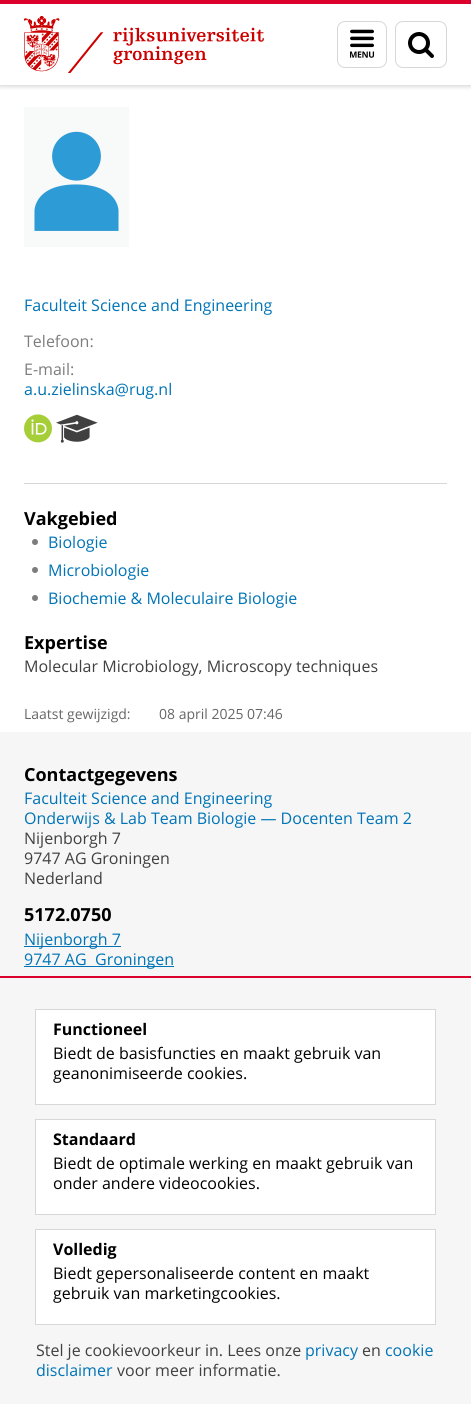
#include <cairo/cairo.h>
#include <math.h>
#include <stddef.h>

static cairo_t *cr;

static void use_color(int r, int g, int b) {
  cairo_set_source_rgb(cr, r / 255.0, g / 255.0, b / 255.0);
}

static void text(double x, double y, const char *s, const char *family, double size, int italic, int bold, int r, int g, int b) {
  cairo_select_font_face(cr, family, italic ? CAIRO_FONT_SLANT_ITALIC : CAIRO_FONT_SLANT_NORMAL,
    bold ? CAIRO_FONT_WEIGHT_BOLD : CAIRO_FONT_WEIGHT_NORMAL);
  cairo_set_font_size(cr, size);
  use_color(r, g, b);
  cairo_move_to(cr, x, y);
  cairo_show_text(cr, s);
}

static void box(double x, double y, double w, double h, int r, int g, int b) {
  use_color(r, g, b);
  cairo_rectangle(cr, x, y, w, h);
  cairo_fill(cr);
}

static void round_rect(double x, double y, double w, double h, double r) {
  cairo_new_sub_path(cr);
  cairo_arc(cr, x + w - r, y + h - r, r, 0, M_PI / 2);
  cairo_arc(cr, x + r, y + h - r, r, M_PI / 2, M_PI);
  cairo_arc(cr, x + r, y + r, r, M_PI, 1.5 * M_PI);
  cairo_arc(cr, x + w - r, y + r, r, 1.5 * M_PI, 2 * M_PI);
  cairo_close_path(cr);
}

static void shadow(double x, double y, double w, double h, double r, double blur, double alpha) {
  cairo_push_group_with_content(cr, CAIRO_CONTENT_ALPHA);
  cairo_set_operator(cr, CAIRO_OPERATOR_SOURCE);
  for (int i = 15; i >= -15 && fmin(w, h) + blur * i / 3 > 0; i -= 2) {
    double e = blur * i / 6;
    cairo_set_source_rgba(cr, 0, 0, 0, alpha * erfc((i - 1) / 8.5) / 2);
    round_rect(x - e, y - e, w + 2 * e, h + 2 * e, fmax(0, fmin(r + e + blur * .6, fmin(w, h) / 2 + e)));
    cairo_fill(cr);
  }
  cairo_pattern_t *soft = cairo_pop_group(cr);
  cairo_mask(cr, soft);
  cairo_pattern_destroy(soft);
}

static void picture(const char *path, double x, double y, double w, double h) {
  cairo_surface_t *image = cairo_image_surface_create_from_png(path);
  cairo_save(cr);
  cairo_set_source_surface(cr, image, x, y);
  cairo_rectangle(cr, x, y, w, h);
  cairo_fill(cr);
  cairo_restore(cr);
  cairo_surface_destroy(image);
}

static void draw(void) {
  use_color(246, 246, 246);
  cairo_paint(cr);
  box(0, 85, 471, 647, 255, 255, 255);
  use_color(0, 0, 0);
  shadow(0, 1, 471, 85, 0, 2.5, 0.2);
  box(0, 4, 471, 81, 255, 255, 255);
  box(0, 0, 471, 4, 220, 0, 45);
  picture("img_01.png", 24, 16, 240, 57);
  round_rect(337.5, 21.5, 49, 46, 7.5);
  use_color(215, 215, 215);
  cairo_set_line_width(cr, 1);
  cairo_stroke(cr);
  picture("img_02.png", 350, 29, 25, 29);
  round_rect(395.5, 21.5, 51, 46, 7.5);
  cairo_stroke(cr);
  picture("img_03.png", 408, 32, 26, 26);
  picture("img_04.png", 24, 107, 105, 140);
  picture("img_05.png", 24, 414, 28, 29);
  picture("img_06.png", 56, 414, 42, 29);
  box(24, 483, 423, 1, 215, 215, 215);
  use_color(125, 125, 125);
  cairo_arc(cr, 35, 542, 3, 0, 2 * M_PI);
  cairo_fill(cr);
  cairo_arc(cr, 35, 570, 3, 0, 2 * M_PI);
  cairo_fill(cr);
  cairo_arc(cr, 35, 598, 3, 0, 2 * M_PI);
  cairo_fill(cr);
  box(24, 946, 97, 1, 0, 116, 182);
  box(24, 966, 150, 1, 0, 116, 182);
  box(0, 976, 471, 2, 220, 0, 45);
  cairo_rectangle(cr, 35.5, 1009.5, 400, 95);
  use_color(215, 215, 215);
  cairo_stroke(cr);
  box(36, 1010, 399, 94, 255, 255, 255);
  cairo_rectangle(cr, 35.5, 1119.5, 400, 95);
  use_color(215, 215, 215);
  cairo_stroke(cr);
  box(36, 1120, 399, 94, 255, 255, 255);
  cairo_rectangle(cr, 35.5, 1229.5, 400, 95);
  use_color(215, 215, 215);
  cairo_stroke(cr);
  box(36, 1230, 399, 94, 255, 255, 255);
  text(24, 311, "Faculteit Science and Engineering", "Open Sans", 16, 0, 0, 0, 116, 182);
  text(24, 347, "Telefoon:", "Open Sans", 16, 0, 0, 125, 125, 125);
  text(24, 375, "E-mail:", "Open Sans", 16, 0, 0, 125, 125, 125);
  text(24, 395, "a.u.zielinska@rug.nl", "Open Sans", 16, 0, 0, 0, 116, 182);
  text(24, 525, "Vakgebied", "Open Sans", 18, 0, 1, 0, 0, 0);
  text(48, 548, "Biologie", "Open Sans", 16, 0, 0, 0, 116, 182);
  text(48, 576, "Microbiologie", "Open Sans", 16, 0, 0, 0, 116, 182);
  text(48, 604, "Biochemie & Moleculaire Biologie", "Open Sans", 16, 0, 0, 0, 116, 182);
  text(24, 649, "Expertise", "Open Sans", 18, 0, 1, 0, 0, 0);
  text(24, 672, "Molecular Microbiology, Microscopy techniques", "Open Sans", 16, 0, 0, 64, 64, 64);
  text(24, 719, "Laatst gewijzigd:", "Open Sans", 14, 0, 0, 102, 102, 102);
  text(159, 719, "08 april 2025 07:46", "Open Sans", 14, 0, 0, 102, 102, 102);
  text(24, 781, "Contactgegevens", "Open Sans", 18, 0, 1, 0, 0, 0);
  text(24, 804, "Faculteit Science and Engineering", "Open Sans", 16, 0, 0, 0, 116, 182);
  text(24, 824, "Onderwijs & Lab Team Biologie — Docenten Team 2", "Open Sans", 16, 0, 0, 0, 116, 182);
  text(24, 844, "Nijenborgh 7", "Open Sans", 16, 0, 0, 64, 64, 64);
  text(24, 864, "9747 AG Groningen", "Open Sans", 16, 0, 0, 64, 64, 64);
  text(24, 884, "Nederland", "Open Sans", 16, 0, 0, 64, 64, 64);
  text(24, 921, "5172.0750", "Open Sans", 18, 0, 1, 0, 0, 0);
  text(24, 945, "Nijenborgh 7", "Open Sans", 16, 0, 0, 0, 116, 182);
  text(24, 965, "9747 AG", "Open Sans", 16, 0, 0, 0, 116, 182);
  text(95, 965, "Groningen", "Open Sans", 16, 0, 0, 0, 116, 182);
  text(53, 1035, "Functioneel", "Open Sans", 16, 0, 1, 0, 0, 0);
  text(53, 1059, "Biedt de basisfuncties en maakt gebruik van", "Open Sans", 16, 0, 0, 0, 0, 0);
  text(53, 1079, "geanonimiseerde cookies.", "Open Sans", 16, 0, 0, 0, 0, 0);
  text(53, 1145, "Standaard", "Open Sans", 16, 0, 1, 0, 0, 0);
  text(53, 1169, "Biedt de optimale werking en maakt gebruik van", "Open Sans", 16, 0, 0, 0, 0, 0);
  text(53, 1189, "onder andere videocookies.", "Open Sans", 16, 0, 0, 0, 0, 0);
  text(53, 1255, "Volledig", "Open Sans", 16, 0, 1, 0, 0, 0);
  text(53, 1279, "Biedt gepersonaliseerde content en maakt", "Open Sans", 16, 0, 0, 0, 0, 0);
  text(53, 1299, "gebruik van marketingcookies.", "Open Sans", 16, 0, 0, 0, 0, 0);
  text(36, 1356, "Stel je cookievoorkeur in. Lees onze", "Open Sans", 16, 0, 0, 64, 64, 64);
  text(305, 1356, "privacy", "Open Sans", 16, 0, 0, 0, 116, 182);
  text(362, 1356, "en", "Open Sans", 16, 0, 0, 64, 64, 64);
  text(385, 1356, "cookie", "Open Sans", 16, 0, 0, 0, 116, 182);
  text(36, 1376, "disclaimer", "Open Sans", 16, 0, 0, 0, 116, 182);
  text(117, 1376, "voor meer informatie.", "Open Sans", 16, 0, 0, 64, 64, 64);
}

int main(void) {
  cairo_surface_t *surface = cairo_image_surface_create(CAIRO_FORMAT_RGB24, 471, 1404);
  cr = cairo_create(surface);
  cairo_font_options_t *options = cairo_font_options_create();
  cairo_font_options_set_hint_metrics(options, CAIRO_HINT_METRICS_OFF);
  cairo_font_options_set_hint_style(options, CAIRO_HINT_STYLE_NONE);
  cairo_set_font_options(cr, options);
  cairo_set_miter_limit(cr, 4);
  draw();
  cairo_surface_write_to_png(surface, "out.png");
  cairo_font_options_destroy(options);
  cairo_destroy(cr);
  cairo_surface_destroy(surface);
  return 0;
}
